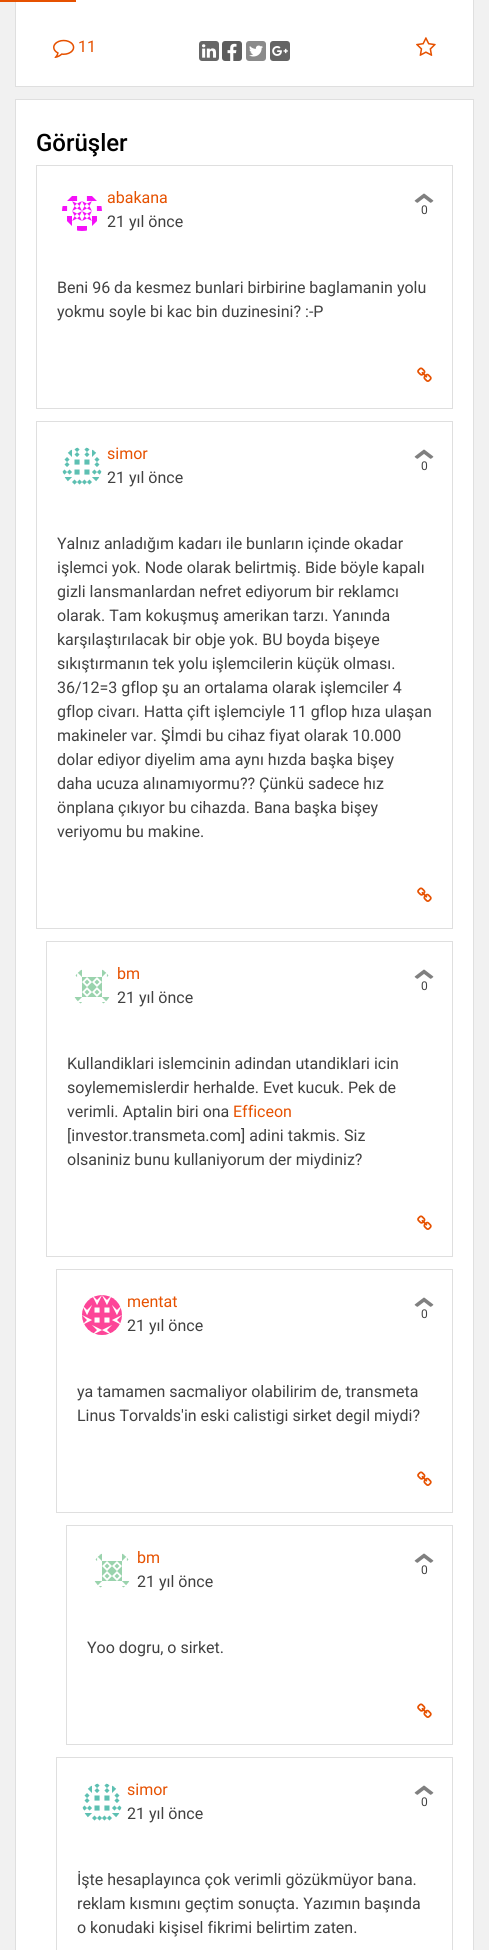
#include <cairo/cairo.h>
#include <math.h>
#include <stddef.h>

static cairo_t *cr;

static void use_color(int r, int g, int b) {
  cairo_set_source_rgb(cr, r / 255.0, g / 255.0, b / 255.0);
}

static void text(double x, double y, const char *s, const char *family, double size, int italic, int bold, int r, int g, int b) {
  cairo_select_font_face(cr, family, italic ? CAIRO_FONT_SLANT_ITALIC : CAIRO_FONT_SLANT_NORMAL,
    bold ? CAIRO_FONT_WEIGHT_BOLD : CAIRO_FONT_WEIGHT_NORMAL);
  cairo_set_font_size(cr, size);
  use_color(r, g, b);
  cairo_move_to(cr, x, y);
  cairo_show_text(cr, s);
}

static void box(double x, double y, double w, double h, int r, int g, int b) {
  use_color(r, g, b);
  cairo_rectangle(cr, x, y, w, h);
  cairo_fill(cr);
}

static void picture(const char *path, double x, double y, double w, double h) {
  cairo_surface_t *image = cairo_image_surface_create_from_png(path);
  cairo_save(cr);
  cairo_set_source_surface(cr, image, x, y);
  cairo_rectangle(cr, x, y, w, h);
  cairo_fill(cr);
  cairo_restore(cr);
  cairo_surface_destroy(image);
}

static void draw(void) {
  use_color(241, 241, 241);
  cairo_paint(cr);
  use_color(255, 255, 255);
  cairo_rectangle(cr, 15.5, -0.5, 458, 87);
  cairo_fill_preserve(cr);
  use_color(223, 223, 223);
  cairo_set_line_width(cr, 1);
  cairo_stroke(cr);
  box(0, 0, 76, 2, 230, 81, 0);
  picture("img_01.png", 53, 39, 22, 19);
  picture("img_02.png", 199, 41, 20, 20);
  picture("img_03.png", 222, 41, 20, 20);
  picture("img_04.png", 246, 41, 20, 20);
  picture("img_05.png", 270, 41, 20, 20);
  picture("img_06.png", 416, 37, 20, 19);
  use_color(255, 255, 255);
  cairo_rectangle(cr, 15.5, 99.5, 458, 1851);
  cairo_fill_preserve(cr);
  use_color(223, 223, 223);
  cairo_stroke(cr);
  cairo_rectangle(cr, 36.5, 165.5, 416, 243);
  cairo_stroke(cr);
  picture("img_07.png", 62, 196, 40, 35);
  picture("img_08.png", 414, 193, 20, 10);
  picture("img_09.png", 417, 367, 15, 15);
  cairo_rectangle(cr, 36.5, 421.5, 416, 507);
  cairo_stroke(cr);
  picture("img_10.png", 62, 447, 40, 38);
  picture("img_08.png", 414, 449, 20, 10);
  picture("img_09.png", 417, 887, 15, 15);
  cairo_rectangle(cr, 46.5, 941.5, 406, 315);
  cairo_stroke(cr);
  picture("img_11.png", 74, 969, 36, 35);
  picture("img_08.png", 414, 969, 20, 10);
  picture("img_09.png", 417, 1215, 15, 15);
  cairo_rectangle(cr, 56.5, 1269.5, 396, 243);
  cairo_stroke(cr);
  picture("img_12.png", 82, 1295, 40, 40);
  picture("img_08.png", 414, 1297, 20, 10);
  picture("img_09.png", 417, 1471, 15, 15);
  cairo_rectangle(cr, 66.5, 1525.5, 386, 219);
  cairo_stroke(cr);
  picture("img_13.png", 94, 1553, 36, 35);
  picture("img_08.png", 414, 1553, 20, 10);
  picture("img_09.png", 417, 1703, 15, 15);
  cairo_rectangle(cr, 56.5, 1757.5, 396, 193);
  cairo_stroke(cr);
  picture("img_10.png", 82, 1783, 40, 38);
  picture("img_08.png", 414, 1785, 20, 10);
  text(78, 52, "11", "Roboto", 16, 0, 0, 230, 81, 0);
  text(36, 151, "Görüşler", "Roboto Medium", 24, 0, 0, 0, 0, 0);
  text(107, 203, "abakana", "Roboto", 16, 0, 0, 230, 81, 0);
  text(107, 227, "21 yıl önce", "Roboto", 16, 0, 0, 65, 65, 65);
  text(421, 214, "0", "Roboto", 12, 0, 0, 65, 65, 65);
  text(57, 293, "Beni 96 da kesmez bunlari birbirine baglamanin yolu", "Roboto", 16, 0, 0, 65, 65, 65);
  text(57, 317, "yokmu soyle bi kac bin duzinesini? :-P", "Roboto", 16, 0, 0, 65, 65, 65);
  text(107, 459, "simor", "Roboto", 16, 0, 0, 230, 81, 0);
  text(107, 483, "21 yıl önce", "Roboto", 16, 0, 0, 65, 65, 65);
  text(421, 470, "0", "Roboto", 12, 0, 0, 65, 65, 65);
  text(57, 549, "Yalnız anladığım kadarı ile bunların içinde okadar", "Roboto", 16, 0, 0, 65, 65, 65);
  text(57, 573, "işlemci yok. Node olarak belirtmiş. Bide böyle kapalı", "Roboto", 16, 0, 0, 65, 65, 65);
  text(57, 597, "gizli lansmanlardan nefret ediyorum bir reklamcı", "Roboto", 16, 0, 0, 65, 65, 65);
  text(57, 621, "olarak. Tam kokuşmuş amerikan tarzı. Yanında", "Roboto", 16, 0, 0, 65, 65, 65);
  text(57, 645, "karşılaştırılacak bir obje yok. BU boyda bişeye", "Roboto", 16, 0, 0, 65, 65, 65);
  text(57, 669, "sıkıştırmanın tek yolu işlemcilerin küçük olması.", "Roboto", 16, 0, 0, 65, 65, 65);
  text(57, 693, "36/12=3 gflop şu an ortalama olarak işlemciler 4", "Roboto", 16, 0, 0, 65, 65, 65);
  text(57, 717, "gflop civarı. Hatta çift işlemciyle 11 gflop hıza ulaşan", "Roboto", 16, 0, 0, 65, 65, 65);
  text(57, 741, "makineler var. Şİmdi bu cihaz fiyat olarak 10.000", "Roboto", 16, 0, 0, 65, 65, 65);
  text(57, 765, "dolar ediyor diyelim ama aynı hızda başka bişey", "Roboto", 16, 0, 0, 65, 65, 65);
  text(57, 789, "daha ucuza alınamıyormu?\077 Çünkü sadece hız", "Roboto", 16, 0, 0, 65, 65, 65);
  text(57, 813, "önplana çıkıyor bu cihazda. Bana başka bişey", "Roboto", 16, 0, 0, 65, 65, 65);
  text(57, 837, "veriyomu bu makine.", "Roboto", 16, 0, 0, 65, 65, 65);
  text(117, 979, "bm", "Roboto", 16, 0, 0, 230, 81, 0);
  text(117, 1003, "21 yıl önce", "Roboto", 16, 0, 0, 65, 65, 65);
  text(421, 990, "0", "Roboto", 12, 0, 0, 65, 65, 65);
  text(67, 1069, "Kullandiklari islemcinin adindan utandiklari icin", "Roboto", 16, 0, 0, 65, 65, 65);
  text(67, 1093, "soylememislerdir herhalde. Evet kucuk. Pek de", "Roboto", 16, 0, 0, 65, 65, 65);
  text(67, 1117, "verimli. Aptalin biri ona", "Roboto", 16, 0, 0, 65, 65, 65);
  text(233, 1117, "Efficeon", "Roboto", 16, 0, 0, 230, 81, 0);
  text(67, 1141, "[investor.transmeta.com] adini takmis. Siz", "Roboto", 16, 0, 0, 65, 65, 65);
  text(67, 1165, "olsaniniz bunu kullaniyorum der miydiniz?", "Roboto", 16, 0, 0, 65, 65, 65);
  text(127, 1307, "mentat", "Roboto", 16, 0, 0, 230, 81, 0);
  text(127, 1331, "21 yıl önce", "Roboto", 16, 0, 0, 65, 65, 65);
  text(421, 1318, "0", "Roboto", 12, 0, 0, 65, 65, 65);
  text(77, 1397, "ya tamamen sacmaliyor olabilirim de, transmeta", "Roboto", 16, 0, 0, 65, 65, 65);
  text(77, 1421, "Linus Torvalds'in eski calistigi sirket degil miydi?", "Roboto", 16, 0, 0, 65, 65, 65);
  text(137, 1563, "bm", "Roboto", 16, 0, 0, 230, 81, 0);
  text(137, 1587, "21 yıl önce", "Roboto", 16, 0, 0, 65, 65, 65);
  text(421, 1574, "0", "Roboto", 12, 0, 0, 65, 65, 65);
  text(87, 1653, "Yoo dogru, o sirket.", "Roboto", 16, 0, 0, 65, 65, 65);
  text(127, 1795, "simor", "Roboto", 16, 0, 0, 230, 81, 0);
  text(127, 1819, "21 yıl önce", "Roboto", 16, 0, 0, 65, 65, 65);
  text(421, 1806, "0", "Roboto", 12, 0, 0, 65, 65, 65);
  text(77, 1885, "İşte hesaplayınca çok verimli gözükmüyor bana.", "Roboto", 16, 0, 0, 65, 65, 65);
  text(77, 1909, "reklam kısmını geçtim sonuçta. Yazımın başında", "Roboto", 16, 0, 0, 65, 65, 65);
  text(77, 1933, "o konudaki kişisel fikrimi belirtim zaten.", "Roboto", 16, 0, 0, 65, 65, 65);
}

int main(void) {
  cairo_surface_t *surface = cairo_image_surface_create(CAIRO_FORMAT_RGB24, 489, 1950);
  cr = cairo_create(surface);
  cairo_font_options_t *options = cairo_font_options_create();
  cairo_font_options_set_hint_metrics(options, CAIRO_HINT_METRICS_OFF);
  cairo_font_options_set_hint_style(options, CAIRO_HINT_STYLE_NONE);
  cairo_set_font_options(cr, options);
  cairo_set_miter_limit(cr, 4);
  draw();
  cairo_surface_write_to_png(surface, "out.png");
  cairo_font_options_destroy(options);
  cairo_destroy(cr);
  cairo_surface_destroy(surface);
  return 0;
}
